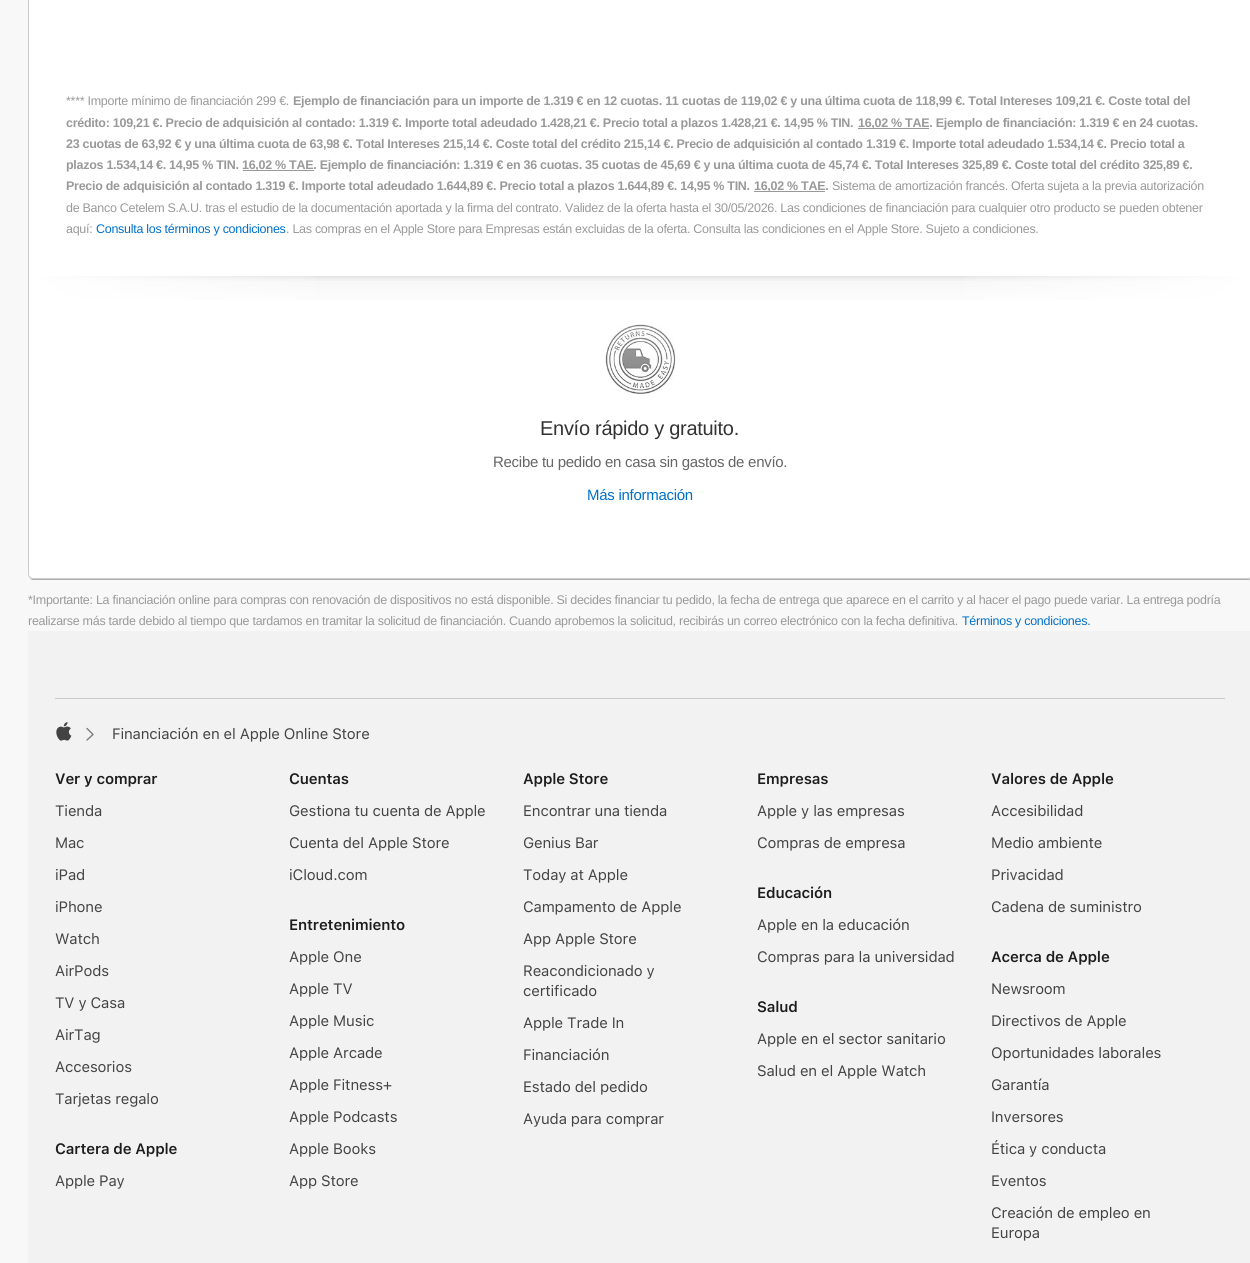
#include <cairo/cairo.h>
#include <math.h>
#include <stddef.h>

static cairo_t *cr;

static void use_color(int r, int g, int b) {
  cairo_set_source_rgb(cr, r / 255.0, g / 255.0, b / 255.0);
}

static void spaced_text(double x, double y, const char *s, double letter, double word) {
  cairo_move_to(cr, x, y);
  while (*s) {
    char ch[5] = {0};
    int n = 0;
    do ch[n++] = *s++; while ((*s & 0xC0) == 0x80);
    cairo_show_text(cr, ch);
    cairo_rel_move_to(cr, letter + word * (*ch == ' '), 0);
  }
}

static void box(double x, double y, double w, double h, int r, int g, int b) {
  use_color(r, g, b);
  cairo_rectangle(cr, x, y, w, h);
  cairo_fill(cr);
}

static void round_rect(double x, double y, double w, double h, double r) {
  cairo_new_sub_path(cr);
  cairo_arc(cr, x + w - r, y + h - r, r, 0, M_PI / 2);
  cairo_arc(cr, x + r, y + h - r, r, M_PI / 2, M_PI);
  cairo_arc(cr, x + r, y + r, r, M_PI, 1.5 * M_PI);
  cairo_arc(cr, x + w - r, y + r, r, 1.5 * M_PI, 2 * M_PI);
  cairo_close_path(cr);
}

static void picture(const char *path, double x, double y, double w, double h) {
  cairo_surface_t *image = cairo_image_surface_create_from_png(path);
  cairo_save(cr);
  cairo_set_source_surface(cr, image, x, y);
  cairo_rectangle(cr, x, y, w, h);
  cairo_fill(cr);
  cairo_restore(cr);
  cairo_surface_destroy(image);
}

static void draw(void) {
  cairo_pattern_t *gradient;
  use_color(248, 248, 248);
  cairo_paint(cr);
  use_color(174, 174, 174);
  cairo_new_path(cr);
  cairo_move_to(cr, 28, 576);
  cairo_curve_to(cr, 29, 578, 31, 580, 33, 580);
  cairo_line_to(cr, 1248, 580);
  cairo_curve_to(cr, 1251, 580, 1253, 578, 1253, 575);
  cairo_line_to(cr, 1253, -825);
  cairo_line_to(cr, 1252, -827);
  cairo_line_to(cr, 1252, 574);
  cairo_curve_to(cr, 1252, 577, 1250, 579, 1248, 579);
  cairo_line_to(cr, 32, 579);
  cairo_curve_to(cr, 31, 579, 29, 578, 28, 576);
  cairo_close_path(cr);
  cairo_fill(cr);
  use_color(255, 255, 255);
  round_rect(28.5, -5.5, 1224, 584, 4.5);
  cairo_fill_preserve(cr);
  use_color(204, 204, 204);
  cairo_set_line_width(cr, 1);
  cairo_stroke(cr);
  box(858, 128, 71, 1, 153, 153, 153);
  box(243, 170, 71, 1, 153, 153, 153);
  box(754, 191, 71, 1, 153, 153, 153);
  gradient = cairo_pattern_create_linear(640, 276, 640, 540);
  cairo_pattern_add_color_stop_rgba(gradient, 0, 0.961, 0.961, 0.961, 1);
  cairo_pattern_add_color_stop_rgba(gradient, 0.12, 1, 1, 1, 1);
  cairo_set_source(cr, gradient);
  cairo_pattern_destroy(gradient);
  cairo_rectangle(cr, 31, 276, 1218, 24);
  cairo_fill(cr);
  gradient = cairo_pattern_create_linear(640, 276, 640, 540);
  cairo_pattern_add_color_stop_rgba(gradient, 0, 0.89, 0.89, 0.89, 1);
  cairo_pattern_add_color_stop_rgba(gradient, 0.02, 0.89, 0.89, 0.89, 0);
  cairo_set_source(cr, gradient);
  cairo_pattern_destroy(gradient);
  cairo_rectangle(cr, 31, 276, 1218, 5);
  cairo_fill(cr);
  gradient = cairo_pattern_create_linear(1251, 408, 29, 408);
  cairo_pattern_add_color_stop_rgba(gradient, 0, 1, 1, 1, 1);
  cairo_pattern_add_color_stop_rgba(gradient, 0.26, 1, 1, 1, 0);
  cairo_set_source(cr, gradient);
  cairo_pattern_destroy(gradient);
  cairo_rectangle(cr, 965, 276, 284, 24);
  cairo_fill(cr);
  gradient = cairo_pattern_create_linear(29, 408, 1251, 408);
  cairo_pattern_add_color_stop_rgba(gradient, 0, 1, 1, 1, 1);
  cairo_pattern_add_color_stop_rgba(gradient, 0.26, 1, 1, 1, 0);
  cairo_set_source(cr, gradient);
  cairo_pattern_destroy(gradient);
  cairo_rectangle(cr, 31, 276, 284, 24);
  cairo_fill(cr);
  picture("img_01.png", 605, 324, 71, 70);
  box(28, 631, 1222, 632, 242, 242, 242);
  box(55, 698, 1170, 1, 203, 203, 203);
  picture("img_02.png", 56, 722, 16, 19);
  cairo_new_path(cr);
  cairo_move_to(cr, 87, 728.5);
  cairo_line_to(cr, 93, 734.5);
  cairo_line_to(cr, 87, 740);
  use_color(126, 126, 126);
  cairo_set_line_width(cr, 1.4);
  cairo_set_line_cap(cr, CAIRO_LINE_CAP_ROUND);
  cairo_set_line_join(cr, CAIRO_LINE_JOIN_ROUND);
  cairo_stroke(cr);
  cairo_select_font_face(cr, "Liberation Sans", CAIRO_FONT_SLANT_NORMAL, CAIRO_FONT_WEIGHT_NORMAL);
  cairo_set_font_size(cr, 12.5);
  use_color(153, 153, 153);
  spaced_text(66, 105, "**** Importe mínimo de financiación 299 €.", -0.28, 0);
  cairo_select_font_face(cr, "Liberation Sans", CAIRO_FONT_SLANT_NORMAL, CAIRO_FONT_WEIGHT_BOLD);
  spaced_text(293, 105, "Ejemplo de financiación para un importe de 1.319 € en 12 cuotas. 11 cuotas de 119,02 € y una última cuota de 118,99 €. Total Intereses 109,21 €. Coste total del", -0.28, 0);
  spaced_text(66, 127, "crédito: 109,21 €. Precio de adquisición al contado: 1.319 €. Importe total adeudado 1.428,21 €. Precio total a plazos 1.428,21 €. 14,95 % TIN.", -0.28, 0);
  spaced_text(858, 127, "16,02 % TAE. Ejemplo de financiación: 1.319 € en 24 cuotas.", -0.28, 0);
  spaced_text(66, 148, "23 cuotas de 63,92 € y una última cuota de 63,98 €. Total Intereses 215,14 €. Coste total del crédito 215,14 €. Precio de adquisición al contado 1.319 €. Importe total adeudado 1.534,14 €. Precio total a", -0.28, 0);
  spaced_text(66, 169, "plazos 1.534,14 €. 14,95 % TIN.", -0.28, 0);
  spaced_text(242, 169, "16,02 % TAE. Ejemplo de financiación: 1.319 € en 36 cuotas. 35 cuotas de 45,69 € y una última cuota de 45,74 €. Total Intereses 325,89 €. Coste total del crédito 325,89 €.", -0.28, 0);
  spaced_text(66, 190, "Precio de adquisición al contado 1.319 €. Importe total adeudado 1.644,89 €. Precio total a plazos 1.644,89 €. 14,95 % TIN.", -0.28, 0);
  spaced_text(754, 190, "16,02 % TAE.", -0.28, 0);
  cairo_select_font_face(cr, "Liberation Sans", CAIRO_FONT_SLANT_NORMAL, CAIRO_FONT_WEIGHT_NORMAL);
  spaced_text(832, 190, "Sistema de amortización francés. Oferta sujeta a la previa autorización", -0.28, 0);
  spaced_text(66, 212, "de Banco Cetelem S.A.U. tras el estudio de la documentación aportada y la firma del contrato. Validez de la oferta hasta el 30/05/2026. Las condiciones de financiación para cualquier otro producto se pueden obtener", -0.28, 0);
  spaced_text(66, 233, "aquí:", -0.28, 0);
  use_color(0, 112, 201);
  spaced_text(96, 233, "Consulta los términos y condiciones", -0.28, 0);
  use_color(153, 153, 153);
  spaced_text(286, 233, ". Las compras en el Apple Store para Empresas están excluidas de la oferta. Consulta las condiciones en el Apple Store. Sujeto a condiciones.", -0.28, 0);
  cairo_set_font_size(cr, 20);
  use_color(51, 51, 51);
  spaced_text(540, 435, "Envío rápido y gratuito.", -0.28, 0);
  cairo_set_font_size(cr, 15);
  use_color(102, 102, 102);
  spaced_text(493, 467, "Recibe tu pedido en casa sin gastos de envío.", -0.28, 0);
  use_color(0, 112, 201);
  spaced_text(587, 500, "Más información", -0.28, 0);
  cairo_set_font_size(cr, 12.5);
  use_color(153, 153, 153);
  spaced_text(28, 604, "*Importante: La financiación online para compras con renovación de dispositivos no está disponible. Si decides financiar tu pedido, la fecha de entrega que aparece en el carrito y al hacer el pago puede variar. La entrega podría", -0.28, 0);
  spaced_text(28, 625, "realizarse más tarde debido al tiempo que tardamos en tramitar la solicitud de financiación. Cuando aprobemos la solicitud, recibirás un correo electrónico con la fecha definitiva.", -0.28, 0);
  use_color(0, 112, 201);
  spaced_text(962, 625, "Términos y condiciones.", -0.28, 0);
  cairo_select_font_face(cr, "SF Pro Text", CAIRO_FONT_SLANT_NORMAL, CAIRO_FONT_WEIGHT_NORMAL);
  cairo_set_font_size(cr, 15);
  use_color(68, 68, 68);
  spaced_text(112, 739, "Financiación en el Apple Online Store", -0.15, 0);
  cairo_select_font_face(cr, "SF Pro Text SemiBold", CAIRO_FONT_SLANT_NORMAL, CAIRO_FONT_WEIGHT_NORMAL);
  use_color(29, 29, 29);
  spaced_text(55, 784, "Ver y comprar", -0.15, 0);
  cairo_select_font_face(cr, "SF Pro Text", CAIRO_FONT_SLANT_NORMAL, CAIRO_FONT_WEIGHT_NORMAL);
  use_color(68, 68, 68);
  spaced_text(55, 816, "Tienda", -0.15, 0);
  spaced_text(55, 848, "Mac", -0.15, 0);
  spaced_text(55, 880, "iPad", -0.15, 0);
  spaced_text(55, 912, "iPhone", -0.15, 0);
  spaced_text(55, 944, "Watch", -0.15, 0);
  spaced_text(55, 976, "AirPods", -0.15, 0);
  spaced_text(55, 1008, "TV y Casa", -0.15, 0);
  spaced_text(55, 1040, "AirTag", -0.15, 0);
  spaced_text(55, 1072, "Accesorios", -0.15, 0);
  spaced_text(55, 1104, "Tarjetas regalo", -0.15, 0);
  cairo_select_font_face(cr, "SF Pro Text SemiBold", CAIRO_FONT_SLANT_NORMAL, CAIRO_FONT_WEIGHT_NORMAL);
  use_color(29, 29, 29);
  spaced_text(55, 1154, "Cartera de Apple", -0.15, 0);
  cairo_select_font_face(cr, "SF Pro Text", CAIRO_FONT_SLANT_NORMAL, CAIRO_FONT_WEIGHT_NORMAL);
  use_color(68, 68, 68);
  spaced_text(55, 1186, "Apple Pay", -0.15, 0);
  cairo_select_font_face(cr, "SF Pro Text SemiBold", CAIRO_FONT_SLANT_NORMAL, CAIRO_FONT_WEIGHT_NORMAL);
  use_color(29, 29, 29);
  spaced_text(289, 784, "Cuentas", -0.15, 0);
  cairo_select_font_face(cr, "SF Pro Text", CAIRO_FONT_SLANT_NORMAL, CAIRO_FONT_WEIGHT_NORMAL);
  use_color(68, 68, 68);
  spaced_text(289, 816, "Gestiona tu cuenta de Apple", -0.15, 0);
  spaced_text(289, 848, "Cuenta del Apple Store", -0.15, 0);
  spaced_text(289, 880, "iCloud.com", -0.15, 0);
  cairo_select_font_face(cr, "SF Pro Text SemiBold", CAIRO_FONT_SLANT_NORMAL, CAIRO_FONT_WEIGHT_NORMAL);
  use_color(29, 29, 29);
  spaced_text(289, 930, "Entretenimiento", -0.15, 0);
  cairo_select_font_face(cr, "SF Pro Text", CAIRO_FONT_SLANT_NORMAL, CAIRO_FONT_WEIGHT_NORMAL);
  use_color(68, 68, 68);
  spaced_text(289, 962, "Apple One", -0.15, 0);
  spaced_text(289, 994, "Apple TV", -0.15, 0);
  spaced_text(289, 1026, "Apple Music", -0.15, 0);
  spaced_text(289, 1058, "Apple Arcade", -0.15, 0);
  spaced_text(289, 1090, "Apple Fitness+", -0.15, 0);
  spaced_text(289, 1122, "Apple Podcasts", -0.15, 0);
  spaced_text(289, 1154, "Apple Books", -0.15, 0);
  spaced_text(289, 1186, "App Store", -0.15, 0);
  cairo_select_font_face(cr, "SF Pro Text SemiBold", CAIRO_FONT_SLANT_NORMAL, CAIRO_FONT_WEIGHT_NORMAL);
  use_color(29, 29, 29);
  spaced_text(523, 784, "Apple Store", -0.15, 0);
  cairo_select_font_face(cr, "SF Pro Text", CAIRO_FONT_SLANT_NORMAL, CAIRO_FONT_WEIGHT_NORMAL);
  use_color(68, 68, 68);
  spaced_text(523, 816, "Encontrar una tienda", -0.15, 0);
  spaced_text(523, 848, "Genius Bar", -0.15, 0);
  spaced_text(523, 880, "Today at Apple", -0.15, 0);
  spaced_text(523, 912, "Campamento de Apple", -0.15, 0);
  spaced_text(523, 944, "App Apple Store", -0.15, 0);
  spaced_text(523, 976, "Reacondicionado y", -0.15, 0);
  spaced_text(523, 996, "certificado", -0.15, 0);
  spaced_text(523, 1028, "Apple Trade In", -0.15, 0);
  spaced_text(523, 1060, "Financiación", -0.15, 0);
  spaced_text(523, 1092, "Estado del pedido", -0.15, 0);
  spaced_text(523, 1124, "Ayuda para comprar", -0.15, 0);
  cairo_select_font_face(cr, "SF Pro Text SemiBold", CAIRO_FONT_SLANT_NORMAL, CAIRO_FONT_WEIGHT_NORMAL);
  use_color(29, 29, 29);
  spaced_text(757, 784, "Empresas", -0.15, 0);
  cairo_select_font_face(cr, "SF Pro Text", CAIRO_FONT_SLANT_NORMAL, CAIRO_FONT_WEIGHT_NORMAL);
  use_color(68, 68, 68);
  spaced_text(757, 816, "Apple y las empresas", -0.15, 0);
  spaced_text(757, 848, "Compras de empresa", -0.15, 0);
  cairo_select_font_face(cr, "SF Pro Text SemiBold", CAIRO_FONT_SLANT_NORMAL, CAIRO_FONT_WEIGHT_NORMAL);
  use_color(29, 29, 29);
  spaced_text(757, 898, "Educación", -0.15, 0);
  cairo_select_font_face(cr, "SF Pro Text", CAIRO_FONT_SLANT_NORMAL, CAIRO_FONT_WEIGHT_NORMAL);
  use_color(68, 68, 68);
  spaced_text(757, 930, "Apple en la educación", -0.15, 0);
  spaced_text(757, 962, "Compras para la universidad", -0.15, 0);
  cairo_select_font_face(cr, "SF Pro Text SemiBold", CAIRO_FONT_SLANT_NORMAL, CAIRO_FONT_WEIGHT_NORMAL);
  use_color(29, 29, 29);
  spaced_text(757, 1012, "Salud", -0.15, 0);
  cairo_select_font_face(cr, "SF Pro Text", CAIRO_FONT_SLANT_NORMAL, CAIRO_FONT_WEIGHT_NORMAL);
  use_color(68, 68, 68);
  spaced_text(757, 1044, "Apple en el sector sanitario", -0.15, 0);
  spaced_text(757, 1076, "Salud en el Apple Watch", -0.15, 0);
  cairo_select_font_face(cr, "SF Pro Text SemiBold", CAIRO_FONT_SLANT_NORMAL, CAIRO_FONT_WEIGHT_NORMAL);
  use_color(29, 29, 29);
  spaced_text(991, 784, "Valores de Apple", -0.15, 0);
  cairo_select_font_face(cr, "SF Pro Text", CAIRO_FONT_SLANT_NORMAL, CAIRO_FONT_WEIGHT_NORMAL);
  use_color(68, 68, 68);
  spaced_text(991, 816, "Accesibilidad", -0.15, 0);
  spaced_text(991, 848, "Medio ambiente", -0.15, 0);
  spaced_text(991, 880, "Privacidad", -0.15, 0);
  spaced_text(991, 912, "Cadena de suministro", -0.15, 0);
  cairo_select_font_face(cr, "SF Pro Text SemiBold", CAIRO_FONT_SLANT_NORMAL, CAIRO_FONT_WEIGHT_NORMAL);
  use_color(29, 29, 29);
  spaced_text(991, 962, "Acerca de Apple", -0.15, 0);
  cairo_select_font_face(cr, "SF Pro Text", CAIRO_FONT_SLANT_NORMAL, CAIRO_FONT_WEIGHT_NORMAL);
  use_color(68, 68, 68);
  spaced_text(991, 994, "Newsroom", -0.15, 0);
  spaced_text(991, 1026, "Directivos de Apple", -0.15, 0);
  spaced_text(991, 1058, "Oportunidades laborales", -0.15, 0);
  spaced_text(991, 1090, "Garantía", -0.15, 0);
  spaced_text(991, 1122, "Inversores", -0.15, 0);
  spaced_text(991, 1154, "Ética y conducta", -0.15, 0);
  spaced_text(991, 1186, "Eventos", -0.15, 0);
  spaced_text(991, 1218, "Creación de empleo en", -0.15, 0);
  spaced_text(991, 1238, "Europa", -0.15, 0);
}

int main(void) {
  cairo_surface_t *surface = cairo_image_surface_create(CAIRO_FORMAT_RGB24, 1250, 1263);
  cr = cairo_create(surface);
  cairo_font_options_t *options = cairo_font_options_create();
  cairo_font_options_set_hint_metrics(options, CAIRO_HINT_METRICS_OFF);
  cairo_font_options_set_hint_style(options, CAIRO_HINT_STYLE_NONE);
  cairo_set_font_options(cr, options);
  cairo_set_miter_limit(cr, 4);
  draw();
  cairo_surface_write_to_png(surface, "out.png");
  cairo_font_options_destroy(options);
  cairo_destroy(cr);
  cairo_surface_destroy(surface);
  return 0;
}
